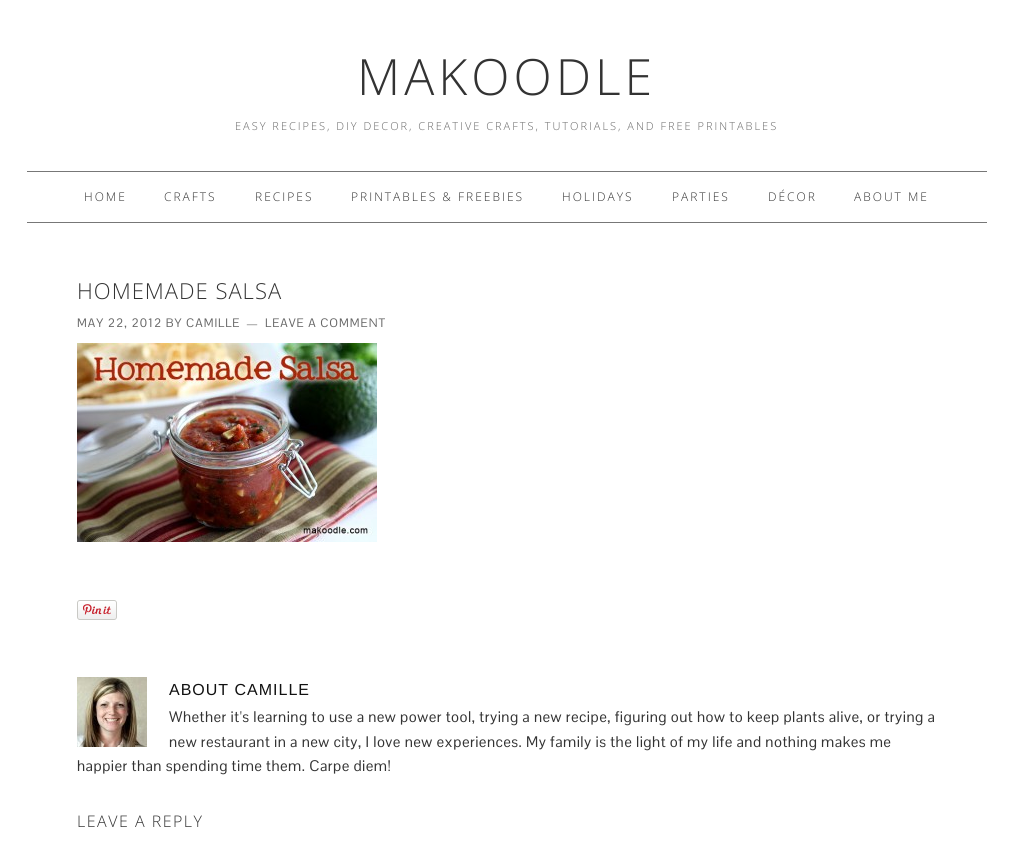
#include <cairo/cairo.h>
#include <math.h>
#include <stddef.h>

static cairo_t *cr;

static void use_color(int r, int g, int b) {
  cairo_set_source_rgb(cr, r / 255.0, g / 255.0, b / 255.0);
}

static void spaced_text(double x, double y, const char *s, double letter, double word) {
  cairo_move_to(cr, x, y);
  while (*s) {
    char ch[5] = {0};
    int n = 0;
    do ch[n++] = *s++; while ((*s & 0xC0) == 0x80);
    cairo_show_text(cr, ch);
    cairo_rel_move_to(cr, letter + word * (*ch == ' '), 0);
  }
}

static void box(double x, double y, double w, double h, int r, int g, int b) {
  use_color(r, g, b);
  cairo_rectangle(cr, x, y, w, h);
  cairo_fill(cr);
}

static void picture(const char *path, double x, double y, double w, double h) {
  cairo_surface_t *image = cairo_image_surface_create_from_png(path);
  cairo_save(cr);
  cairo_set_source_surface(cr, image, x, y);
  cairo_rectangle(cr, x, y, w, h);
  cairo_fill(cr);
  cairo_restore(cr);
  cairo_surface_destroy(image);
}

static void draw(void) {
  use_color(255, 255, 255);
  cairo_paint(cr);
  box(27, 171, 960, 1, 119, 119, 119);
  box(27, 222, 960, 1, 119, 119, 119);
  picture("img_01.png", 77, 343, 300, 199);
  picture("img_02.png", 77, 600, 40, 20);
  picture("img_03.png", 77, 677, 70, 70);
  cairo_select_font_face(cr, "Open Sans Light", CAIRO_FONT_SLANT_NORMAL, CAIRO_FONT_WEIGHT_NORMAL);
  cairo_set_font_size(cr, 50);
  use_color(51, 51, 51);
  spaced_text(357, 95, "MAKOODLE", 4, 0);
  cairo_set_font_size(cr, 11);
  use_color(102, 102, 102);
  spaced_text(235, 130, "EASY RECIPES, DIY DECOR, CREATIVE CRAFTS, TUTORIALS, AND FREE PRINTABLES", 2, 0);
  cairo_set_font_size(cr, 12);
  use_color(51, 51, 51);
  spaced_text(84, 201, "HOME", 2, 0);
  spaced_text(164, 201, "CRAFTS", 2, 0);
  spaced_text(255, 201, "RECIPES", 2, 0);
  spaced_text(351, 201, "PRINTABLES & FREEBIES", 2, 0);
  spaced_text(562, 201, "HOLIDAYS", 2, 0);
  spaced_text(672, 201, "PARTIES", 2, 0);
  spaced_text(768, 201, "DÉCOR", 2, 0);
  spaced_text(854, 201, "ABOUT ME", 2, 0);
  cairo_set_font_size(cr, 22);
  spaced_text(77, 299, "HOMEMADE SALSA", 1, 0);
  cairo_select_font_face(cr, "Pontano Sans", CAIRO_FONT_SLANT_NORMAL, CAIRO_FONT_WEIGHT_NORMAL);
  cairo_set_font_size(cr, 12);
  use_color(102, 102, 102);
  spaced_text(77, 327, "MAY 22, 2012 BY CAMILLE", 1, 0);
  spaced_text(246, 327, "—", 1, 0);
  spaced_text(265, 327, "LEAVE A COMMENT", 1, 0);
  cairo_select_font_face(cr, "Liberation Sans", CAIRO_FONT_SLANT_NORMAL, CAIRO_FONT_WEIGHT_NORMAL);
  cairo_set_font_size(cr, 16);
  use_color(17, 17, 17);
  spaced_text(169, 695, "ABOUT CAMILLE", 1, 0);
  cairo_select_font_face(cr, "Pontano Sans", CAIRO_FONT_SLANT_NORMAL, CAIRO_FONT_WEIGHT_NORMAL);
  cairo_set_font_size(cr, 15);
  use_color(51, 51, 51);
  spaced_text(169, 722, "Whether it's learning to use a new power tool, trying a new recipe, figuring out how to keep plants alive, or trying a", 0.5, 0);
  spaced_text(169, 747, "new restaurant in a new city, I love new experiences. My family is the light of my life and nothing makes me", 0.5, 0);
  spaced_text(77, 771, "happier than spending time them. Carpe diem!", 0.5, 0);
  cairo_select_font_face(cr, "Open Sans Light", CAIRO_FONT_SLANT_NORMAL, CAIRO_FONT_WEIGHT_NORMAL);
  cairo_set_font_size(cr, 16);
  spaced_text(77, 827, "LEAVE A REPLY", 1.5, 0);
}

int main(void) {
  cairo_surface_t *surface = cairo_image_surface_create(CAIRO_FORMAT_RGB24, 1013, 846);
  cr = cairo_create(surface);
  cairo_font_options_t *options = cairo_font_options_create();
  cairo_font_options_set_hint_metrics(options, CAIRO_HINT_METRICS_OFF);
  cairo_font_options_set_hint_style(options, CAIRO_HINT_STYLE_NONE);
  cairo_set_font_options(cr, options);
  cairo_set_miter_limit(cr, 4);
  draw();
  cairo_surface_write_to_png(surface, "out.png");
  cairo_font_options_destroy(options);
  cairo_destroy(cr);
  cairo_surface_destroy(surface);
  return 0;
}
